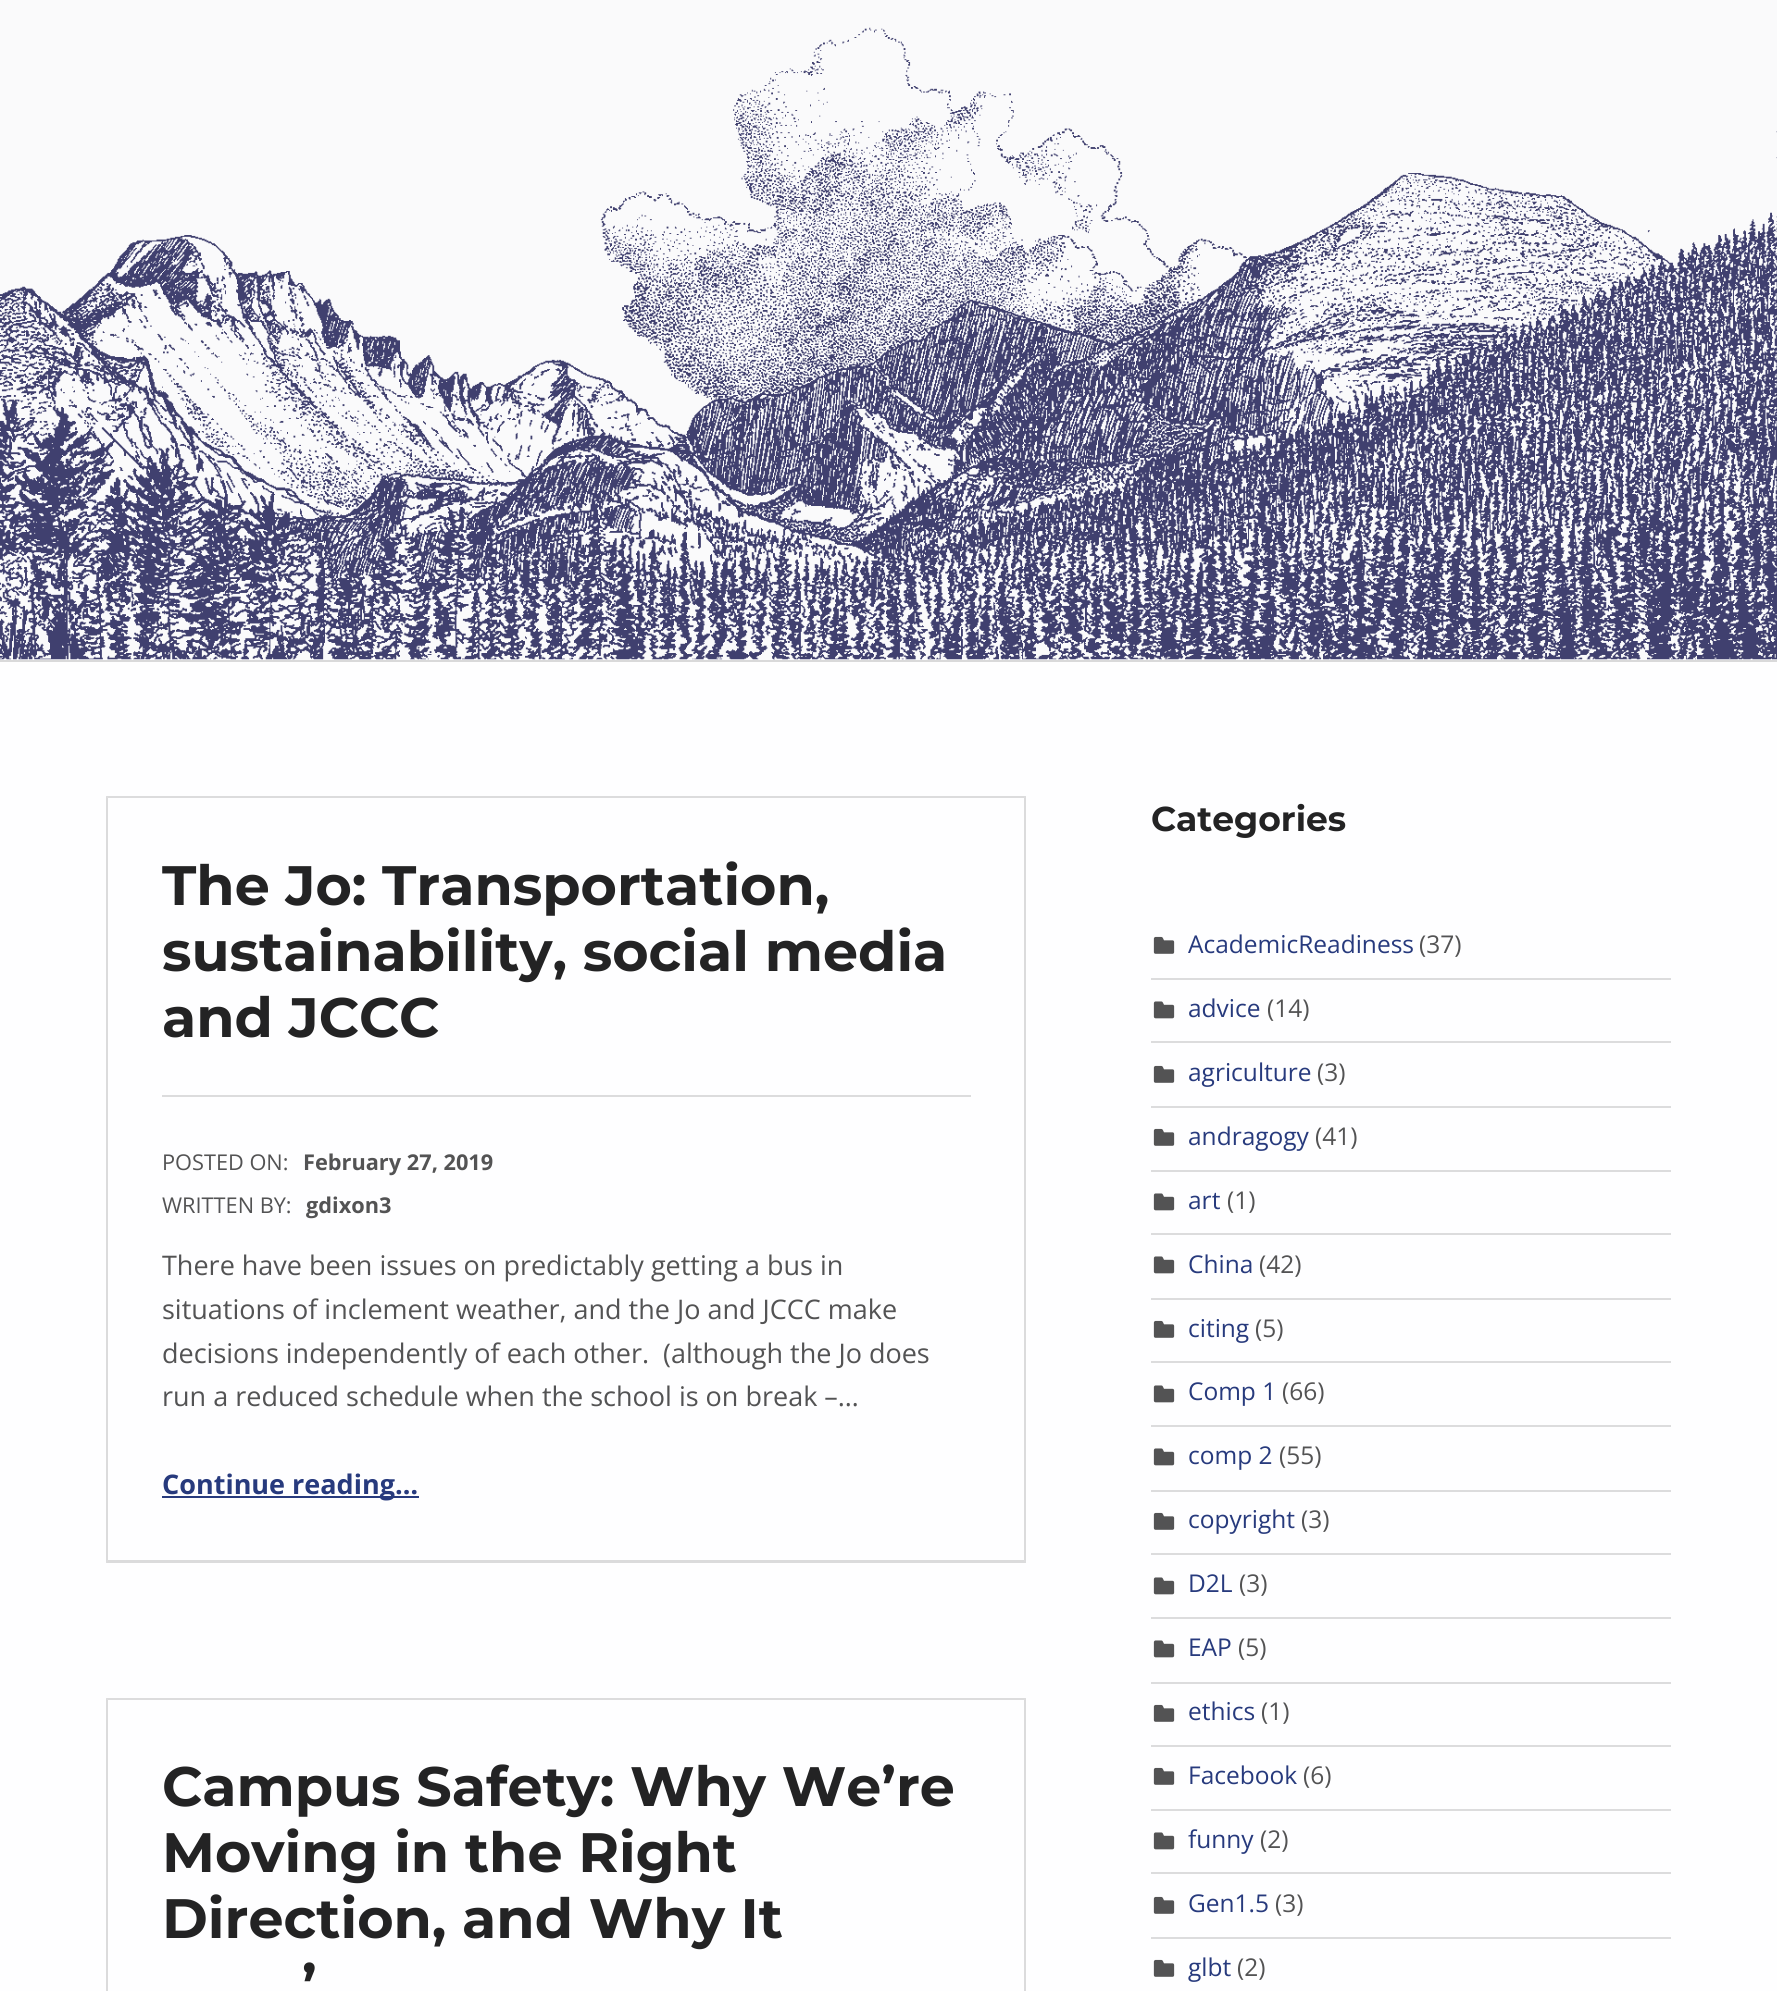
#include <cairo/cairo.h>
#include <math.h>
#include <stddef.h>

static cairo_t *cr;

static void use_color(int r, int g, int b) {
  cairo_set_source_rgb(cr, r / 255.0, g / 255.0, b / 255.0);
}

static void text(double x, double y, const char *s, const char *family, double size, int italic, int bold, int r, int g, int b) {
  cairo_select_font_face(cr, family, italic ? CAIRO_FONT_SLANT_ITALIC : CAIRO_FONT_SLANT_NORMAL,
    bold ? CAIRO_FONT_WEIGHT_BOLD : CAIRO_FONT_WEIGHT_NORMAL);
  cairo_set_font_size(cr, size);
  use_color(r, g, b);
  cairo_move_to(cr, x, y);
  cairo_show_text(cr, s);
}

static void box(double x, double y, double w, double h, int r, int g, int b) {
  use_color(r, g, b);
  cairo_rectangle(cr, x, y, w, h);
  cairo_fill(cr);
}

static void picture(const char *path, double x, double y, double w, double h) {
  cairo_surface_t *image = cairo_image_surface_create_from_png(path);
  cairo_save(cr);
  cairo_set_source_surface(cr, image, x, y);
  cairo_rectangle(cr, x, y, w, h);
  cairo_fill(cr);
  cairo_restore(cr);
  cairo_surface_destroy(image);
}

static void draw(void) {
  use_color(254, 254, 255);
  cairo_paint(cr);
  box(0, 0, 1777, 660, 250, 250, 251);
  box(0, 660, 1777, 2, 217, 217, 218);
  picture("img_01.png", 0, 27, 1777, 633);
  use_color(220, 220, 221);
  cairo_new_path(cr);
  cairo_move_to(cr, 106, 796);
  cairo_line_to(cr, 1026, 796);
  cairo_line_to(cr, 1024, 798);
  cairo_line_to(cr, 108, 798);
  cairo_close_path(cr);
  cairo_fill(cr);
  cairo_set_source_rgba(cr, 0.325, 0.325, 0.329, 0.2);
  cairo_new_path(cr);
  cairo_move_to(cr, 1026, 796);
  cairo_line_to(cr, 1026, 1563);
  cairo_line_to(cr, 1024, 1560);
  cairo_line_to(cr, 1024, 798);
  cairo_close_path(cr);
  cairo_fill(cr);
  cairo_new_path(cr);
  cairo_move_to(cr, 1026, 1563);
  cairo_line_to(cr, 106, 1563);
  cairo_line_to(cr, 108, 1560);
  cairo_line_to(cr, 1024, 1560);
  cairo_close_path(cr);
  cairo_fill(cr);
  cairo_new_path(cr);
  cairo_move_to(cr, 106, 1563);
  cairo_line_to(cr, 106, 796);
  cairo_line_to(cr, 108, 798);
  cairo_line_to(cr, 108, 1560);
  cairo_close_path(cr);
  cairo_fill(cr);
  box(162, 1095, 809, 2, 220, 220, 221);
  box(162, 1496, 257, 2, 39, 58, 125);
  use_color(220, 220, 221);
  cairo_new_path(cr);
  cairo_move_to(cr, 106, 1698);
  cairo_line_to(cr, 1026, 1698);
  cairo_line_to(cr, 1024, 1700);
  cairo_line_to(cr, 108, 1700);
  cairo_close_path(cr);
  cairo_fill(cr);
  cairo_set_source_rgba(cr, 0.325, 0.325, 0.329, 0.2);
  cairo_new_path(cr);
  cairo_move_to(cr, 1026, 1698);
  cairo_line_to(cr, 1026, 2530);
  cairo_line_to(cr, 1024, 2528);
  cairo_line_to(cr, 1024, 1700);
  cairo_close_path(cr);
  cairo_fill(cr);
  cairo_new_path(cr);
  cairo_move_to(cr, 106, 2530);
  cairo_line_to(cr, 106, 1698);
  cairo_line_to(cr, 108, 1700);
  cairo_line_to(cr, 108, 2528);
  cairo_close_path(cr);
  cairo_fill(cr);
  picture("img_02.png", 1153, 936, 22, 18);
  box(1151, 978, 520, 2, 220, 220, 221);
  picture("img_03.png", 1153, 1001, 22, 18);
  box(1151, 1041, 520, 2, 220, 220, 221);
  picture("img_02.png", 1153, 1065, 22, 18);
  box(1151, 1106, 520, 2, 220, 220, 221);
  picture("img_02.png", 1153, 1128, 22, 18);
  box(1151, 1170, 520, 2, 220, 220, 221);
  picture("img_03.png", 1153, 1193, 22, 18);
  box(1151, 1233, 520, 2, 220, 220, 221);
  picture("img_03.png", 1153, 1256, 22, 18);
  box(1151, 1298, 520, 2, 220, 220, 221);
  picture("img_02.png", 1153, 1320, 22, 18);
  box(1151, 1361, 520, 2, 220, 220, 221);
  picture("img_03.png", 1153, 1385, 22, 18);
  box(1151, 1425, 520, 2, 220, 220, 221);
  picture("img_03.png", 1153, 1448, 22, 18);
  box(1151, 1490, 520, 2, 220, 220, 221);
  picture("img_02.png", 1153, 1512, 22, 18);
  box(1151, 1553, 520, 2, 220, 220, 221);
  picture("img_03.png", 1153, 1577, 22, 18);
  box(1151, 1617, 520, 2, 220, 220, 221);
  picture("img_03.png", 1153, 1640, 22, 18);
  box(1151, 1682, 520, 2, 220, 220, 221);
  picture("img_02.png", 1153, 1704, 22, 18);
  box(1151, 1745, 520, 2, 220, 220, 221);
  picture("img_02.png", 1153, 1767, 22, 18);
  box(1151, 1809, 520, 2, 220, 220, 221);
  picture("img_03.png", 1153, 1832, 22, 18);
  box(1151, 1872, 520, 2, 220, 220, 221);
  picture("img_02.png", 1153, 1896, 22, 18);
  box(1151, 1937, 520, 2, 220, 220, 221);
  picture("img_02.png", 1153, 1959, 22, 18);
  text(162, 905, "The Jo: Transportation,", "Montserrat", 55.5, 0, 1, 35, 35, 36);
  text(162, 971, "sustainability, social media", "Montserrat", 55.5, 0, 1, 35, 35, 36);
  text(162, 1037, "and JCCC", "Montserrat", 55.5, 0, 1, 35, 35, 36);
  text(162, 1170, "POSTED ON:", "Open Sans", 21.75, 0, 0, 83, 83, 84);
  text(303, 1170, "February 27, 2019", "Open Sans", 21.75, 0, 1, 83, 83, 84);
  text(162, 1213, "WRITTEN BY:", "Open Sans", 21.75, 0, 0, 83, 83, 84);
  text(306, 1213, "gdixon3", "Open Sans", 21.75, 0, 1, 83, 83, 84);
  text(162, 1275, "There have been issues on predictably getting a bus in", "Open Sans", 27, 0, 0, 83, 83, 84);
  text(162, 1319, "situations of inclement weather, and the Jo and JCCC make", "Open Sans", 27, 0, 0, 83, 83, 84);
  text(162, 1363, "decisions independently of each other.  (although the Jo does", "Open Sans", 27, 0, 0, 83, 83, 84);
  text(162, 1406, "run a reduced schedule when the school is on break –…", "Open Sans", 27, 0, 0, 83, 83, 84);
  text(162, 1494, "Continue reading…", "Open Sans", 27, 0, 1, 39, 58, 125);
  text(162, 1806, "Campus Safety: Why We’re", "Montserrat", 55.5, 0, 1, 35, 35, 36);
  text(162, 1872, "Moving in the Right", "Montserrat", 55.5, 0, 1, 35, 35, 36);
  text(162, 1938, "Direction, and Why It", "Montserrat", 55.5, 0, 1, 35, 35, 36);
  text(302, 2004, "’", "Montserrat", 55.5, 0, 1, 35, 35, 36);
  text(1151, 831, "Categories", "Montserrat", 34.5, 0, 1, 35, 35, 36);
  text(1188, 953, "AcademicReadiness", "Open Sans", 24.5, 0, 0, 39, 58, 125);
  text(1419, 953, "(37)", "Open Sans", 24.5, 0, 0, 83, 83, 84);
  text(1188, 1017, "advice", "Open Sans", 24.5, 0, 0, 39, 58, 125);
  text(1267, 1017, "(14)", "Open Sans", 24.5, 0, 0, 83, 83, 84);
  text(1188, 1081, "agriculture", "Open Sans", 24.5, 0, 0, 39, 58, 125);
  text(1317, 1081, "(3)", "Open Sans", 24.5, 0, 0, 83, 83, 84);
  text(1188, 1145, "andragogy", "Open Sans", 24.5, 0, 0, 39, 58, 125);
  text(1315, 1145, "(41)", "Open Sans", 24.5, 0, 0, 83, 83, 84);
  text(1188, 1209, "art", "Open Sans", 24.5, 0, 0, 39, 58, 125);
  text(1227, 1209, "(1)", "Open Sans", 24.5, 0, 0, 83, 83, 84);
  text(1188, 1273, "China", "Open Sans", 24.5, 0, 0, 39, 58, 125);
  text(1259, 1273, "(42)", "Open Sans", 24.5, 0, 0, 83, 83, 84);
  text(1188, 1337, "citing", "Open Sans", 24.5, 0, 0, 39, 58, 125);
  text(1255, 1337, "(5)", "Open Sans", 24.5, 0, 0, 83, 83, 84);
  text(1188, 1400, "Comp 1", "Open Sans", 24.5, 0, 0, 39, 58, 125);
  text(1282, 1400, "(66)", "Open Sans", 24.5, 0, 0, 83, 83, 84);
  text(1188, 1464, "comp 2", "Open Sans", 24.5, 0, 0, 39, 58, 125);
  text(1279, 1464, "(55)", "Open Sans", 24.5, 0, 0, 83, 83, 84);
  text(1188, 1528, "copyright", "Open Sans", 24.5, 0, 0, 39, 58, 125);
  text(1301, 1528, "(3)", "Open Sans", 24.5, 0, 0, 83, 83, 84);
  text(1188, 1592, "D2L", "Open Sans", 24.5, 0, 0, 39, 58, 125);
  text(1239, 1592, "(3)", "Open Sans", 24.5, 0, 0, 83, 83, 84);
  text(1188, 1656, "EAP", "Open Sans", 24.5, 0, 0, 39, 58, 125);
  text(1238, 1656, "(5)", "Open Sans", 24.5, 0, 0, 83, 83, 84);
  text(1188, 1720, "ethics", "Open Sans", 24.5, 0, 0, 39, 58, 125);
  text(1261, 1720, "(1)", "Open Sans", 24.5, 0, 0, 83, 83, 84);
  text(1188, 1784, "Facebook", "Open Sans", 24.5, 0, 0, 39, 58, 125);
  text(1303, 1784, "(6)", "Open Sans", 24.5, 0, 0, 83, 83, 84);
  text(1188, 1848, "funny", "Open Sans", 24.5, 0, 0, 39, 58, 125);
  text(1260, 1848, "(2)", "Open Sans", 24.5, 0, 0, 83, 83, 84);
  text(1188, 1912, "Gen1.5", "Open Sans", 24.5, 0, 0, 39, 58, 125);
  text(1275, 1912, "(3)", "Open Sans", 24.5, 0, 0, 83, 83, 84);
  text(1188, 1976, "glbt", "Open Sans", 24.5, 0, 0, 39, 58, 125);
  text(1237, 1976, "(2)", "Open Sans", 24.5, 0, 0, 83, 83, 84);
}

int main(void) {
  cairo_surface_t *surface = cairo_image_surface_create(CAIRO_FORMAT_RGB24, 1777, 1991);
  cr = cairo_create(surface);
  cairo_font_options_t *options = cairo_font_options_create();
  cairo_font_options_set_hint_metrics(options, CAIRO_HINT_METRICS_OFF);
  cairo_font_options_set_hint_style(options, CAIRO_HINT_STYLE_NONE);
  cairo_set_font_options(cr, options);
  cairo_set_miter_limit(cr, 4);
  draw();
  cairo_surface_write_to_png(surface, "out.png");
  cairo_font_options_destroy(options);
  cairo_destroy(cr);
  cairo_surface_destroy(surface);
  return 0;
}
